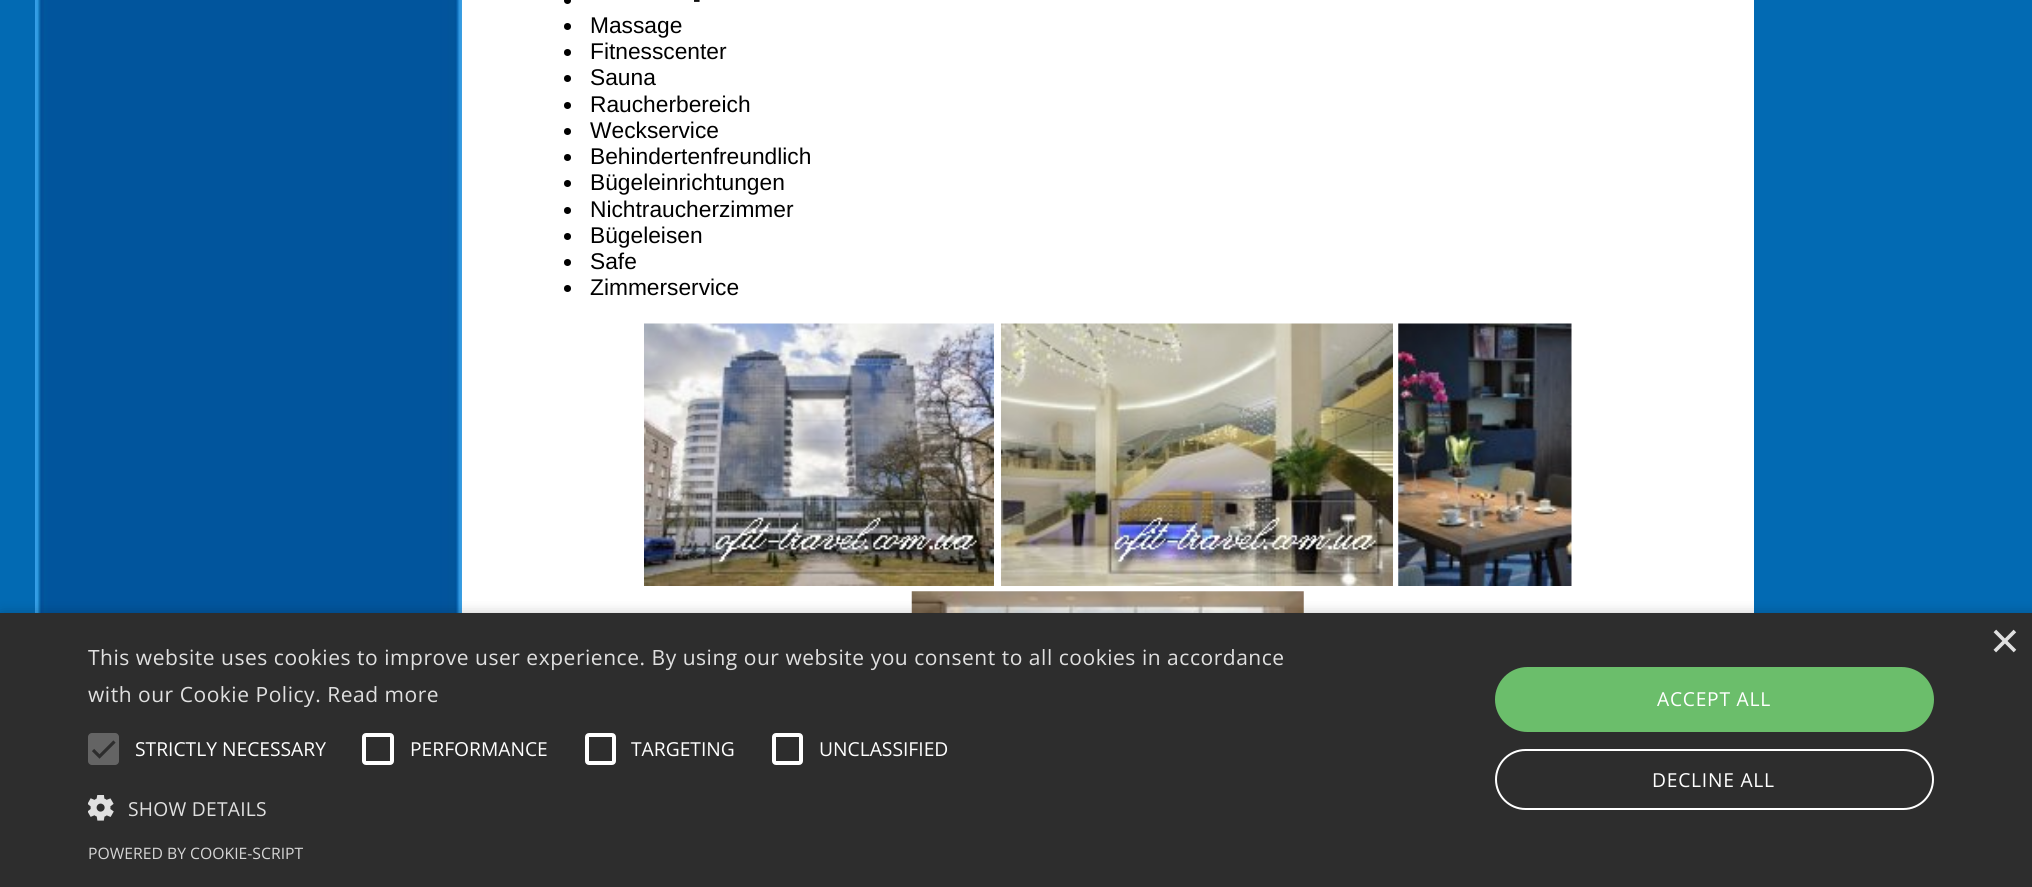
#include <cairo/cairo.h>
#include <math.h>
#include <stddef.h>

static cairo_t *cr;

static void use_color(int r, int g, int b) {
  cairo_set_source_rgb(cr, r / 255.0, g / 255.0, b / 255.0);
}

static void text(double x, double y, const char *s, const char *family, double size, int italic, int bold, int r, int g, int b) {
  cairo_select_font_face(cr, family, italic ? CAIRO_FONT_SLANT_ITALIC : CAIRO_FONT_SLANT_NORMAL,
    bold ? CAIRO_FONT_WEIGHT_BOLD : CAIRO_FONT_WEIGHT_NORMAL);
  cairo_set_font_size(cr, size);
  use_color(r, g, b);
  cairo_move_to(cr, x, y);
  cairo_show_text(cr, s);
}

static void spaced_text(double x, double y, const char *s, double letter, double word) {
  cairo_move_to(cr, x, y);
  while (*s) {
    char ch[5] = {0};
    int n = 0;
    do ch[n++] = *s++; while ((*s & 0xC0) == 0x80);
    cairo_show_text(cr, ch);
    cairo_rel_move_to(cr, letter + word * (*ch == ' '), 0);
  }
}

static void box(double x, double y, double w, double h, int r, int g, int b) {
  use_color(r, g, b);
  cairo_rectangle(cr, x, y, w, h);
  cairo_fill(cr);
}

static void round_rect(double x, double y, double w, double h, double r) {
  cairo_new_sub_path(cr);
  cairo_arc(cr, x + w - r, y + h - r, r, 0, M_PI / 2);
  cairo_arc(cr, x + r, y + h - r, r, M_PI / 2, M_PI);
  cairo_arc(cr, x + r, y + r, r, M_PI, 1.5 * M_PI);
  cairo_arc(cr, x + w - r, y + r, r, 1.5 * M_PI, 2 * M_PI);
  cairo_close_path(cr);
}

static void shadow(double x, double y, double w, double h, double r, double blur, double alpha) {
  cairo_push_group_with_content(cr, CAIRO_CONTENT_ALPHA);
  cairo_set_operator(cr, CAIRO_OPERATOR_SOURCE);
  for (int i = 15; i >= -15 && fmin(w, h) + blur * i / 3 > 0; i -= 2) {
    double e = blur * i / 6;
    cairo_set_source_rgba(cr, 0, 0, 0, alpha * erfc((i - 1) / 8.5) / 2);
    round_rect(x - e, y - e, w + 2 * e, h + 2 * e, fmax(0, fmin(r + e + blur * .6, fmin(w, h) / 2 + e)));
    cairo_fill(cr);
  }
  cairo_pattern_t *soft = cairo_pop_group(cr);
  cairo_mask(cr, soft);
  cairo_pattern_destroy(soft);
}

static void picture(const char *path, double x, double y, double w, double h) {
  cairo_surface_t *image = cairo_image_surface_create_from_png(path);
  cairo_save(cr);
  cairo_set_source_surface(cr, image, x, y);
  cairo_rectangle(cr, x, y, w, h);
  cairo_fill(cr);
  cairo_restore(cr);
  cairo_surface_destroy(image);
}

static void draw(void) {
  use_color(2, 106, 179);
  cairo_paint(cr);
  picture("img_01.png", 35, 0, 427, 613);
  box(462, 0, 1292, 613, 255, 255, 255);
  use_color(0, 0, 0);
  cairo_arc(cr, 567.5, 0.5, 3.5, 0, 2 * M_PI);
  cairo_fill(cr);
  cairo_arc(cr, 567.5, 26.5, 3.5, 0, 2 * M_PI);
  cairo_fill(cr);
  cairo_arc(cr, 567.5, 52.5, 3.5, 0, 2 * M_PI);
  cairo_fill(cr);
  cairo_arc(cr, 567.5, 78.5, 3.5, 0, 2 * M_PI);
  cairo_fill(cr);
  cairo_arc(cr, 567.5, 105.5, 3.5, 0, 2 * M_PI);
  cairo_fill(cr);
  cairo_arc(cr, 567.5, 131.5, 3.5, 0, 2 * M_PI);
  cairo_fill(cr);
  cairo_arc(cr, 567.5, 157.5, 3.5, 0, 2 * M_PI);
  cairo_fill(cr);
  cairo_arc(cr, 567.5, 183.5, 3.5, 0, 2 * M_PI);
  cairo_fill(cr);
  cairo_arc(cr, 567.5, 210.5, 3.5, 0, 2 * M_PI);
  cairo_fill(cr);
  cairo_arc(cr, 567.5, 236.5, 3.5, 0, 2 * M_PI);
  cairo_fill(cr);
  cairo_arc(cr, 567.5, 262.5, 3.5, 0, 2 * M_PI);
  cairo_fill(cr);
  cairo_arc(cr, 567.5, 288.5, 3.5, 0, 2 * M_PI);
  cairo_fill(cr);
  picture("img_02.png", 644, 323, 350, 263);
  picture("img_03.png", 1001, 323, 392, 263);
  picture("img_04.png", 1398, 323, 174, 263);
  picture("img_05.png", 911, 591, 393, 22);
  use_color(0, 0, 0);
  shadow(2, 616, 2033, 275, 0, 7, 0.35);
  box(0, 613, 2032, 274, 45, 45, 45);
  use_color(100, 100, 100);
  round_rect(88, 733, 31, 32, 4);
  cairo_fill(cr);
  cairo_new_path(cr);
  cairo_move_to(cr, 93, 750);
  cairo_line_to(cr, 99.5, 756.5);
  cairo_line_to(cr, 114.5, 741.5);
  use_color(45, 45, 45);
  cairo_set_line_width(cr, 3.2);
  cairo_stroke(cr);
  round_rect(364, 735, 28, 28, 2);
  use_color(255, 255, 255);
  cairo_set_line_width(cr, 4);
  cairo_stroke(cr);
  round_rect(587, 735, 27, 28, 2);
  cairo_stroke(cr);
  round_rect(774, 735, 27, 28, 2);
  cairo_stroke(cr);
  picture("img_06.png", 88, 795, 26, 26);
  use_color(107, 190, 107);
  round_rect(1495, 667, 439, 65, 32.5);
  cairo_fill(cr);
  round_rect(1496, 750, 437, 59, 29.5);
  use_color(255, 255, 255);
  cairo_set_line_width(cr, 2);
  cairo_stroke(cr);
  text(693, 7, "-", "Liberation Sans", 22.75, 0, 0, 0, 0, 0);
  text(590, 33, "Massage", "Liberation Sans", 22.75, 0, 0, 0, 0, 0);
  text(590, 59, "Fitnesscenter", "Liberation Sans", 22.75, 0, 0, 0, 0, 0);
  text(590, 85, "Sauna", "Liberation Sans", 22.75, 0, 0, 0, 0, 0);
  text(590, 112, "Raucherbereich", "Liberation Sans", 22.75, 0, 0, 0, 0, 0);
  text(590, 138, "Weckservice", "Liberation Sans", 22.75, 0, 0, 0, 0, 0);
  text(590, 164, "Behindertenfreundlich", "Liberation Sans", 22.75, 0, 0, 0, 0, 0);
  text(590, 190, "Bügeleinrichtungen", "Liberation Sans", 22.75, 0, 0, 0, 0, 0);
  text(590, 217, "Nichtraucherzimmer", "Liberation Sans", 22.75, 0, 0, 0, 0, 0);
  text(590, 243, "Bügeleisen", "Liberation Sans", 22.75, 0, 0, 0, 0, 0);
  text(590, 269, "Safe", "Liberation Sans", 22.75, 0, 0, 0, 0, 0);
  text(590, 295, "Zimmerservice", "Liberation Sans", 22.75, 0, 0, 0, 0, 0);
  text(1990, 658, "×", "Liberation Sans", 51, 0, 0, 224, 224, 224);
  cairo_select_font_face(cr, "Open Sans", CAIRO_FONT_SLANT_NORMAL, CAIRO_FONT_WEIGHT_NORMAL);
  cairo_set_font_size(cr, 21);
  spaced_text(88, 665, "This website uses cookies to improve user experience. By using our website you consent to all cookies in accordance", 0.53, 0);
  spaced_text(88, 702, "with our Cookie Policy. Read more", 0.53, 0);
  text(135, 756, "STRICTLY NECESSARY", "Open Sans", 19.25, 0, 0, 255, 255, 255);
  text(410, 756, "PERFORMANCE", "Open Sans", 19.25, 0, 0, 255, 255, 255);
  text(631, 756, "TARGETING", "Open Sans", 19.25, 0, 0, 255, 255, 255);
  text(819, 756, "UNCLASSIFIED", "Open Sans", 19.25, 0, 0, 255, 255, 255);
  use_color(224, 224, 224);
  spaced_text(128, 816, "SHOW DETAILS", 0.25, 0);
  use_color(255, 255, 255);
  spaced_text(1657, 706, "ACCEPT ALL", 0.75, 0);
  spaced_text(1652, 787, "DECLINE ALL", 0.75, 0);
  text(88, 859, "POWERED BY COOKIE-SCRIPT", "Open Sans", 15.75, 0, 0, 213, 213, 213);
}

int main(void) {
  cairo_surface_t *surface = cairo_image_surface_create(CAIRO_FORMAT_RGB24, 2032, 887);
  cr = cairo_create(surface);
  cairo_font_options_t *options = cairo_font_options_create();
  cairo_font_options_set_hint_metrics(options, CAIRO_HINT_METRICS_OFF);
  cairo_font_options_set_hint_style(options, CAIRO_HINT_STYLE_NONE);
  cairo_set_font_options(cr, options);
  cairo_set_miter_limit(cr, 4);
  draw();
  cairo_surface_write_to_png(surface, "out.png");
  cairo_font_options_destroy(options);
  cairo_destroy(cr);
  cairo_surface_destroy(surface);
  return 0;
}
